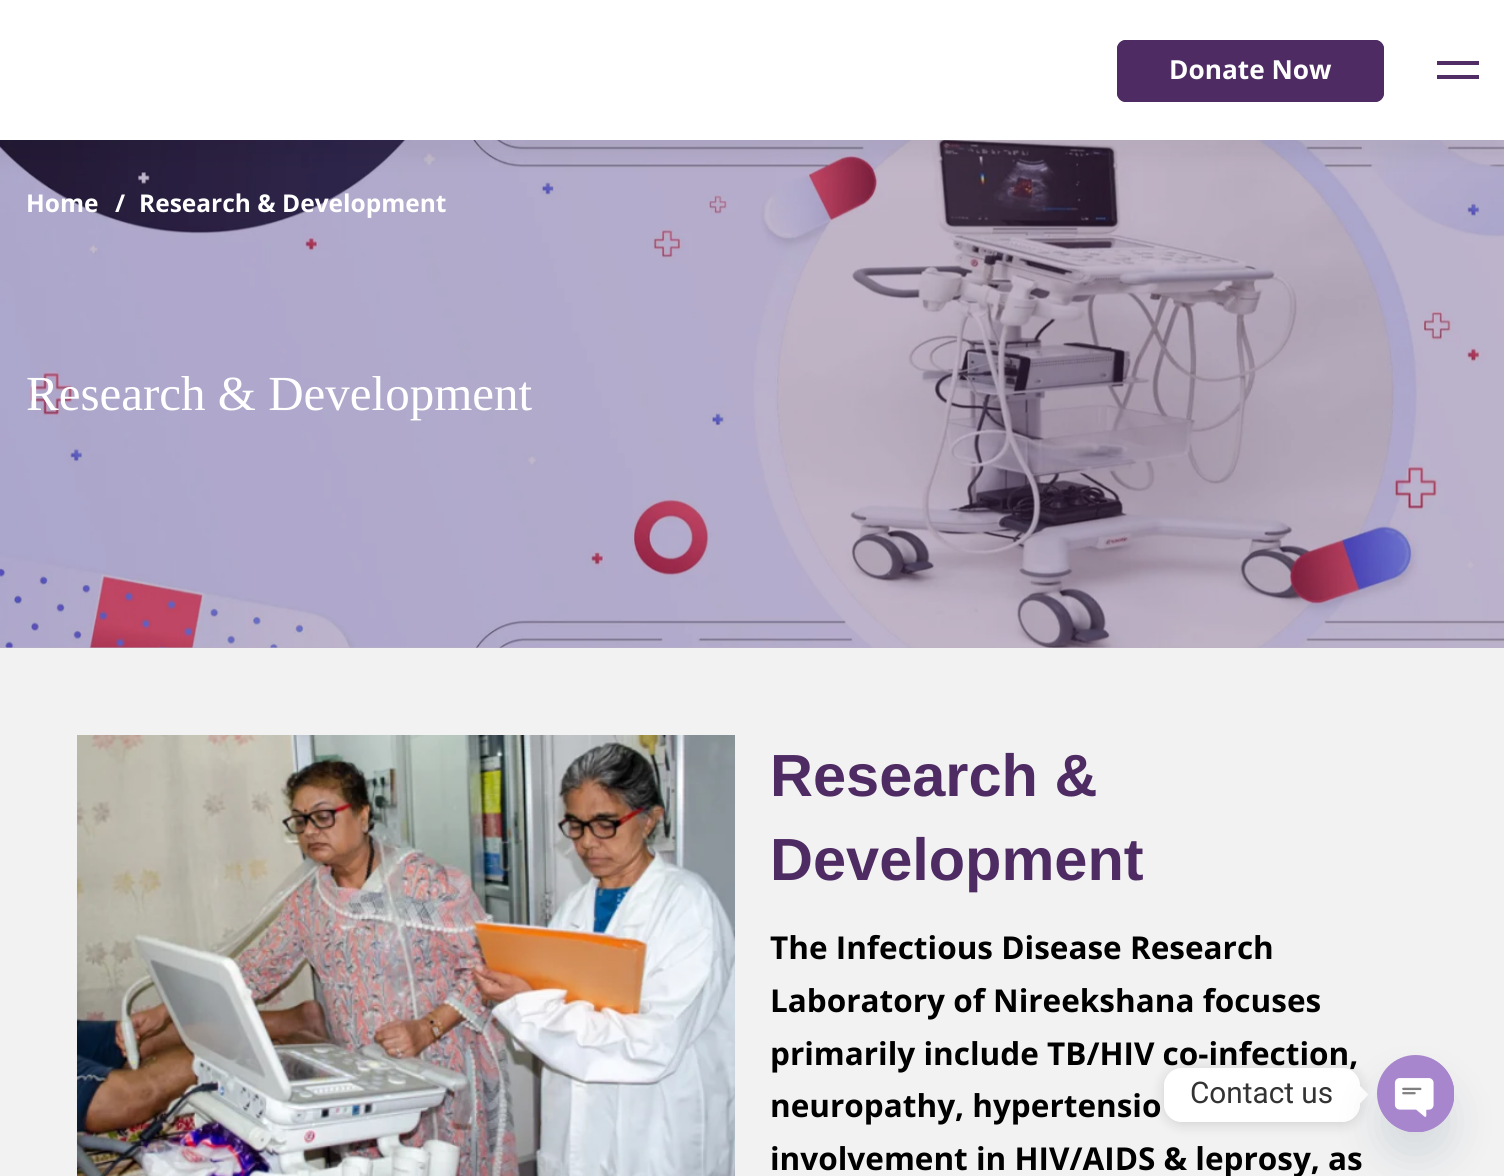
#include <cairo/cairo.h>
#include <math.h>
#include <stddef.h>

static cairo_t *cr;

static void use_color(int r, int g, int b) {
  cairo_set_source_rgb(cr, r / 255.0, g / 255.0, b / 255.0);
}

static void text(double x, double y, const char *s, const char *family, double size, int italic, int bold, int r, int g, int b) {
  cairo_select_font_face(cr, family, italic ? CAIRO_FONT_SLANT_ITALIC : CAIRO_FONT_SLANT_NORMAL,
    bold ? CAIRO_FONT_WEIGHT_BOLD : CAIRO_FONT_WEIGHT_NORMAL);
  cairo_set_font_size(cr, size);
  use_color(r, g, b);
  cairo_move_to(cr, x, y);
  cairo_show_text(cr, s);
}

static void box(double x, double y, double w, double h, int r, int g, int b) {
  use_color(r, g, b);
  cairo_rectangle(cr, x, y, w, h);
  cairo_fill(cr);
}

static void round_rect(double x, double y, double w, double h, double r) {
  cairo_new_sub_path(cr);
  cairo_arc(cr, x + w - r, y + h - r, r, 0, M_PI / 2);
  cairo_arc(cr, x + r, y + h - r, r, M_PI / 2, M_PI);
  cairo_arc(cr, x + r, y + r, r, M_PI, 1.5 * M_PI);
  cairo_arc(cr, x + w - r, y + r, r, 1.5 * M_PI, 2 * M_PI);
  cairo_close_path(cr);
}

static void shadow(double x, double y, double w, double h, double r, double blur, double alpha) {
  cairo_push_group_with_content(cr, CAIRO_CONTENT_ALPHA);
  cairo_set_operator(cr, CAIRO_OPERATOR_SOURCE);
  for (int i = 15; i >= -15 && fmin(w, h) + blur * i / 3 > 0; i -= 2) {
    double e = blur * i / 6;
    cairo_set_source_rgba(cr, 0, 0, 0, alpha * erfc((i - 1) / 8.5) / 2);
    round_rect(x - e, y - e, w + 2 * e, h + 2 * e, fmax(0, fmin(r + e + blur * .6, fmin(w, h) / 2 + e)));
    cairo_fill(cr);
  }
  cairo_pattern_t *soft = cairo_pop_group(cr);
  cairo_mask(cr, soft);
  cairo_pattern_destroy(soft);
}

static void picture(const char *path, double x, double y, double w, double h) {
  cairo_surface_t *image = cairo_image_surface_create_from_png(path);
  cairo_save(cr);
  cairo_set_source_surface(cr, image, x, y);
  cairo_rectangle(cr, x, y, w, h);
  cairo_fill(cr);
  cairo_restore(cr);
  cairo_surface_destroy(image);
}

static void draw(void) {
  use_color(242, 242, 242);
  cairo_paint(cr);
  box(0, 647, 1504, 1, 188, 176, 195);
  picture("img_01.png", 0, 140, 1504, 508);
  use_color(0, 0, 0);
  shadow(0, 18, 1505, 140, 0, 9, 0.05);
  box(0, 0, 1504, 140, 255, 255, 255);
  round_rect(1119, 42, 263, 58, 7);
  use_color(78, 43, 99);
  cairo_set_line_width(cr, 4);
  cairo_stroke(cr);
  round_rect(1117, 40, 267, 62, 9);
  cairo_fill(cr);
  box(1437, 61, 42, 4, 80, 45, 101);
  box(1437, 75, 42, 4, 80, 45, 101);
  picture("img_02.png", 77, 735, 658, 441);
  cairo_save(cr);
  cairo_set_fill_rule(cr, CAIRO_FILL_RULE_EVEN_ODD);
  cairo_new_path(cr);
  cairo_move_to(cr, 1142, 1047);
  cairo_line_to(cr, 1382, 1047);
  cairo_line_to(cr, 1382, 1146);
  cairo_line_to(cr, 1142, 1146);
  cairo_close_path(cr);
  cairo_move_to(cr, 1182, 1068);
  cairo_line_to(cr, 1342, 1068);
  cairo_curve_to(cr, 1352, 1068, 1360, 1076, 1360, 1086);
  cairo_line_to(cr, 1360, 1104);
  cairo_curve_to(cr, 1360, 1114, 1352, 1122, 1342, 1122);
  cairo_line_to(cr, 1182, 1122);
  cairo_curve_to(cr, 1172, 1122, 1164, 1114, 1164, 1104);
  cairo_line_to(cr, 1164, 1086);
  cairo_curve_to(cr, 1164, 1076, 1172, 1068, 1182, 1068);
  cairo_close_path(cr);
  cairo_clip(cr);
  use_color(0, 0, 0);
  shadow(1164, 1069, 196, 55, 18, 7, 0.15);
  cairo_restore(cr);
  use_color(255, 255, 255);
  cairo_new_path(cr);
  cairo_move_to(cr, 1360, 1103.5);
  cairo_line_to(cr, 1360, 1086);
  cairo_line_to(cr, 1368.5, 1094.5);
  cairo_close_path(cr);
  cairo_fill(cr);
  text(1169, 79, "Donate Now", "Open Sans", 26.25, 0, 1, 255, 255, 255);
  text(26, 212, "Home", "Open Sans", 24.5, 0, 1, 255, 255, 255);
  text(115, 212, "/", "Open Sans", 24.5, 0, 1, 255, 255, 255);
  text(139, 212, "Research & Development", "Open Sans", 24.5, 0, 1, 255, 255, 255);
  text(26, 410, "Research & Development", "Liberation Serif", 49, 0, 0, 255, 255, 255);
  text(770, 796, "Research &", "Liberation Sans", 59.5, 0, 1, 78, 43, 99);
  text(770, 880, "Development", "Liberation Sans", 59.5, 0, 1, 78, 43, 99);
  text(770, 959, "The Infectious Disease Research", "Open Sans", 31.5, 0, 1, 0, 0, 0);
  text(770, 1012, "Laboratory of Nireekshana focuses", "Open Sans", 31.5, 0, 1, 0, 0, 0);
  text(770, 1065, "primarily include TB/HIV co-infection,", "Open Sans", 31.5, 0, 1, 0, 0, 0);
  text(770, 1117, "neuropathy, hypertensio", "Open Sans", 31.5, 0, 1, 0, 0, 0);
  text(770, 1170, "involvement in HIV/AIDS & leprosy, as", "Open Sans", 31.5, 0, 1, 0, 0, 0);
  use_color(255, 255, 255);
  round_rect(1164, 1068, 196, 54, 18);
  cairo_fill(cr);
  text(1190, 1103, "Contact us", "Roboto", 29.75, 0, 0, 51, 51, 51);
  use_color(73, 104, 126);
  shadow(1377, 1083, 77, 77, 38.5, 21, 0.16);
  use_color(168, 134, 205);
  cairo_arc(cr, 1415.5, 1093.5, 38.5, 0, 2 * M_PI);
  cairo_fill(cr);
  picture("img_03.png", 1378, 1058, 76, 74);
}

int main(void) {
  cairo_surface_t *surface = cairo_image_surface_create(CAIRO_FORMAT_RGB24, 1504, 1176);
  cr = cairo_create(surface);
  cairo_font_options_t *options = cairo_font_options_create();
  cairo_font_options_set_hint_metrics(options, CAIRO_HINT_METRICS_OFF);
  cairo_font_options_set_hint_style(options, CAIRO_HINT_STYLE_NONE);
  cairo_set_font_options(cr, options);
  cairo_set_miter_limit(cr, 4);
  draw();
  cairo_surface_write_to_png(surface, "out.png");
  cairo_font_options_destroy(options);
  cairo_destroy(cr);
  cairo_surface_destroy(surface);
  return 0;
}
